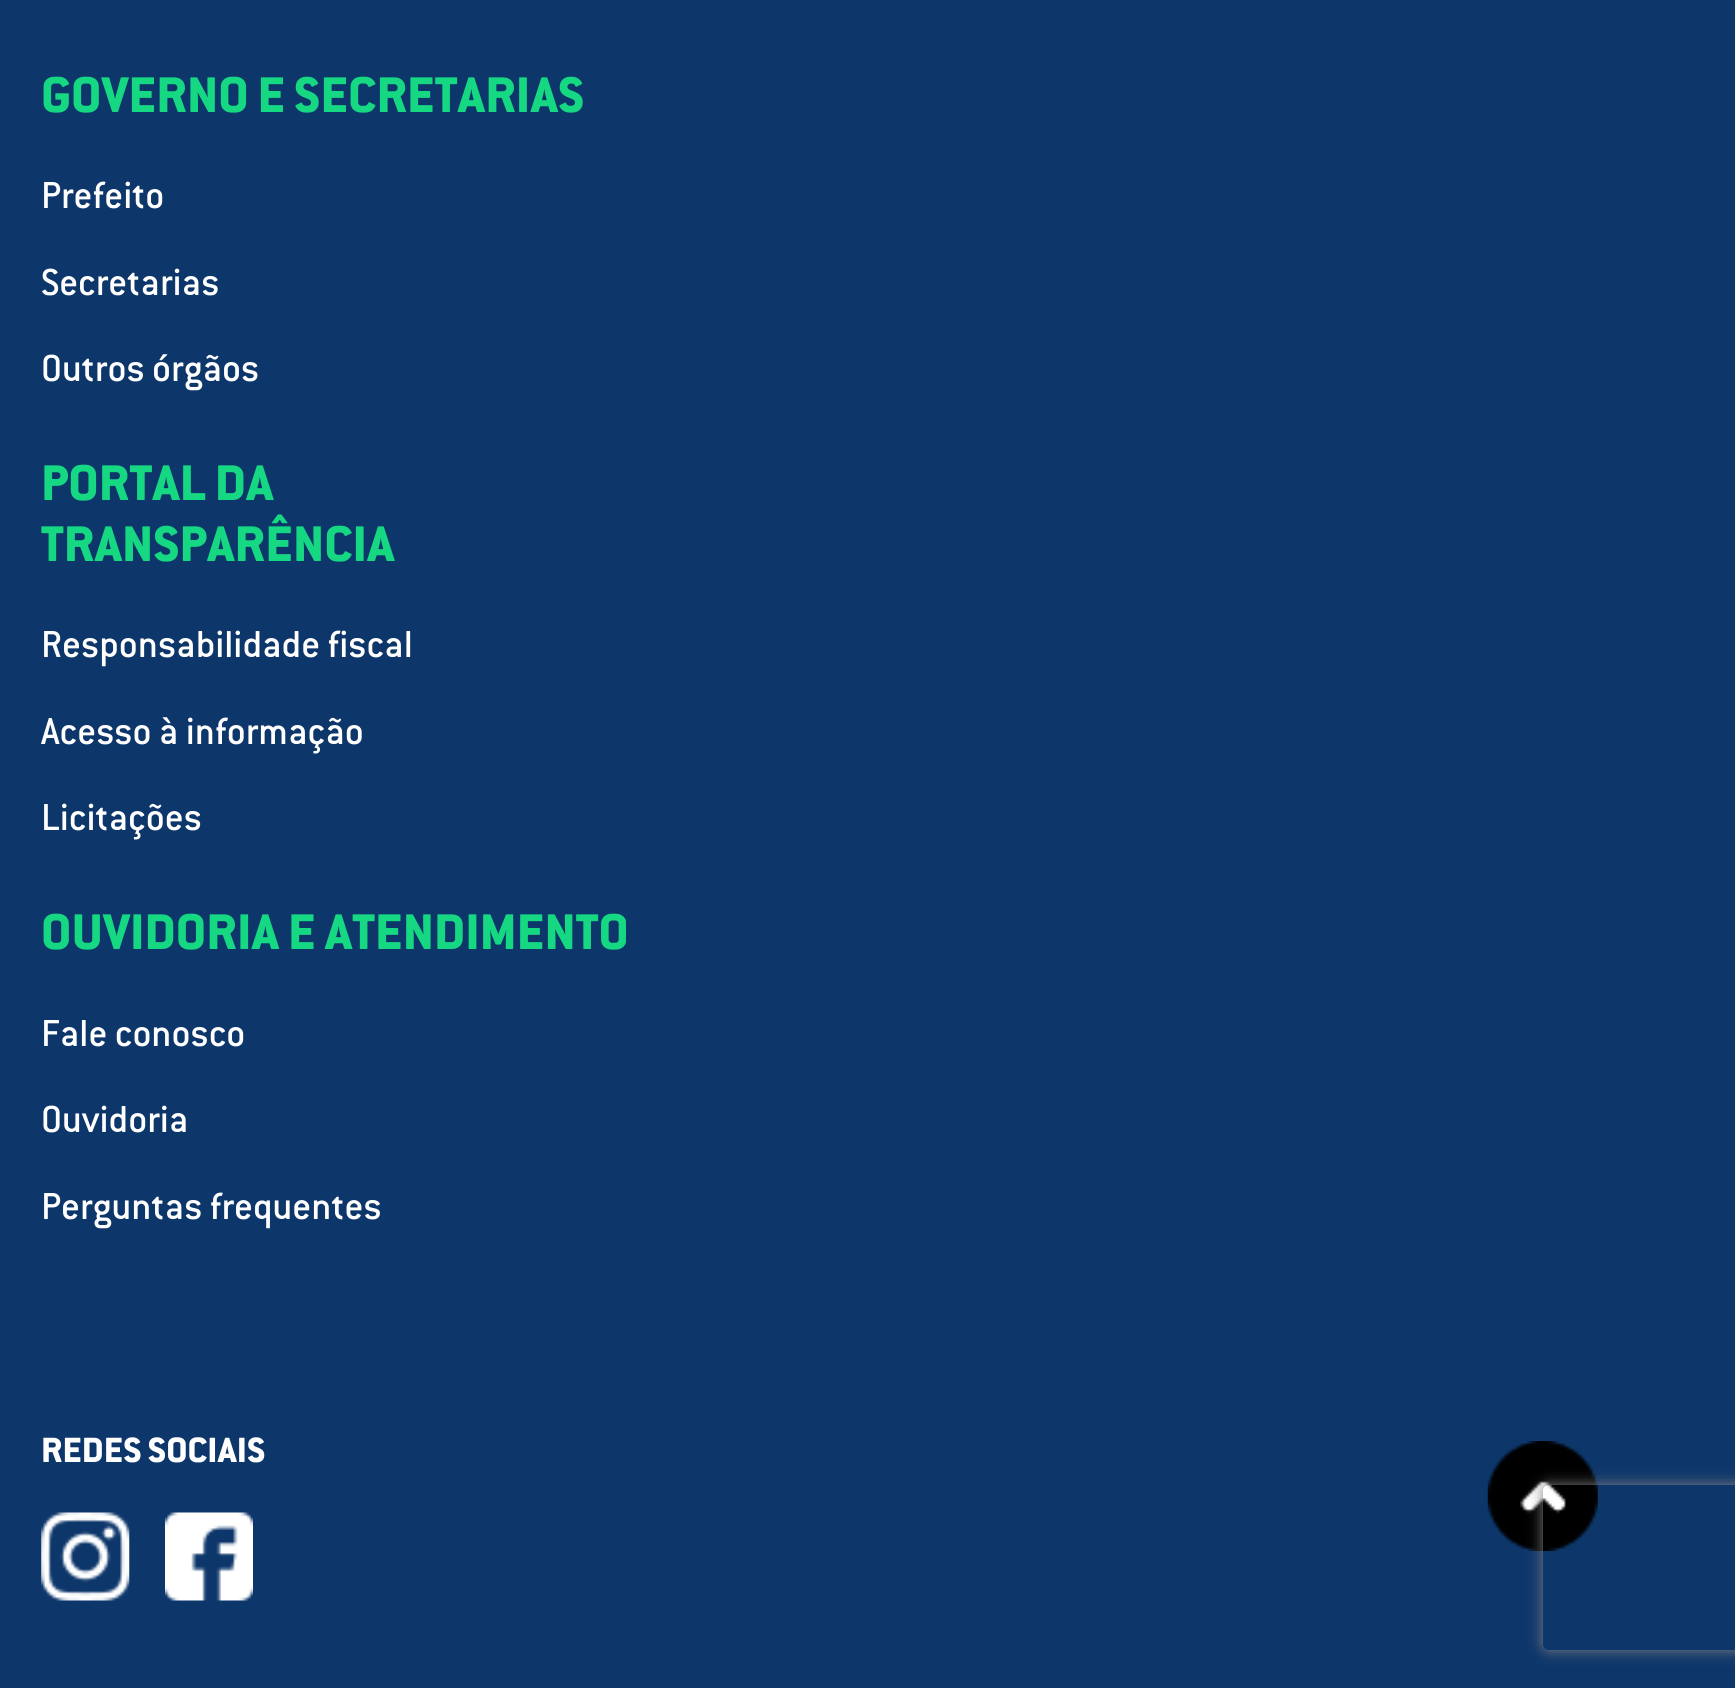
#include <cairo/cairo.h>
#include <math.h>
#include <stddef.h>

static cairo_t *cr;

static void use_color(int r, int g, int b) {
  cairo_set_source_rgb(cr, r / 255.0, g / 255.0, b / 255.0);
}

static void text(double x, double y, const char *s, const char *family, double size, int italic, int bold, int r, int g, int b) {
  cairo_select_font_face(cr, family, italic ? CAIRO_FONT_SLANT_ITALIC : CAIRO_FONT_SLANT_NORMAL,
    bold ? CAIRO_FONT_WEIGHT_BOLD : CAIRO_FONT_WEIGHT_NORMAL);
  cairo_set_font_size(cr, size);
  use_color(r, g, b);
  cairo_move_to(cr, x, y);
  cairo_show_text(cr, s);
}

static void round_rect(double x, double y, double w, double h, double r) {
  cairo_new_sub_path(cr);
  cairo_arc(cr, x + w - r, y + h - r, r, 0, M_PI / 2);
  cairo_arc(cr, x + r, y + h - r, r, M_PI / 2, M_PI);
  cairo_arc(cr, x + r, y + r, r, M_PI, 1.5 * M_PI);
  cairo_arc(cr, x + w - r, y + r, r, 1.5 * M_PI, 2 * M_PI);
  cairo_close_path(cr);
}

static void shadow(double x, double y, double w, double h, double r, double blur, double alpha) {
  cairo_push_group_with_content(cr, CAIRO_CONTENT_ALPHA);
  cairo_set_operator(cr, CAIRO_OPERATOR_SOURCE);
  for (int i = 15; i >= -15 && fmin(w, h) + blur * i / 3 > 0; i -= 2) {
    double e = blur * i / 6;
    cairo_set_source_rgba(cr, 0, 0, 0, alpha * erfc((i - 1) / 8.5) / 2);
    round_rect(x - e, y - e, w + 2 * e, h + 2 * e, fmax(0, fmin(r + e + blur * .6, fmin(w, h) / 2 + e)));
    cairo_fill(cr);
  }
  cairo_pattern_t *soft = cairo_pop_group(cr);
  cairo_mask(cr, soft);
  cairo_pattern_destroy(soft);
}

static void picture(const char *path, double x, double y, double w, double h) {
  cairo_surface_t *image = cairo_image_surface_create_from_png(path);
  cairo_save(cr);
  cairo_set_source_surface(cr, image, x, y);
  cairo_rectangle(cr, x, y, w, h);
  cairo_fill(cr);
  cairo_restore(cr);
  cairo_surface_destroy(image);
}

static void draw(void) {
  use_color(13, 54, 106);
  cairo_paint(cr);
  picture("img_01.png", 41, 1512, 89, 89);
  picture("img_02.png", 165, 1512, 88, 89);
  picture("img_03.png", 1487, 1441, 111, 110);
  cairo_save(cr);
  cairo_set_fill_rule(cr, CAIRO_FILL_RULE_EVEN_ODD);
  cairo_new_path(cr);
  cairo_move_to(cr, 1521, 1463);
  cairo_line_to(cr, 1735, 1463);
  cairo_line_to(cr, 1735, 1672);
  cairo_line_to(cr, 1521, 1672);
  cairo_close_path(cr);
  cairo_move_to(cr, 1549, 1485);
  cairo_line_to(cr, 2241, 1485);
  cairo_curve_to(cr, 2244.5, 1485, 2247, 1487.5, 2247, 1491);
  cairo_line_to(cr, 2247, 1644);
  cairo_curve_to(cr, 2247, 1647.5, 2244.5, 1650, 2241, 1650);
  cairo_line_to(cr, 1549, 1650);
  cairo_curve_to(cr, 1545.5, 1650, 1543, 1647.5, 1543, 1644);
  cairo_line_to(cr, 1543, 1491);
  cairo_curve_to(cr, 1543, 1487.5, 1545.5, 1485, 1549, 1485);
  cairo_close_path(cr);
  cairo_clip(cr);
  use_color(128, 128, 128);
  shadow(1543, 1485, 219, 165, 6, 7, 1);
  cairo_restore(cr);
  text(41, 112, "GOVERNO E SECRETARIAS", "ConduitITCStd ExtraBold", 55, 0, 0, 22, 216, 130);
  text(41, 208, "Prefeito", "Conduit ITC", 41.25, 0, 0, 255, 255, 255);
  text(41, 295, "Secretarias", "Conduit ITC", 41.25, 0, 0, 255, 255, 255);
  text(41, 381, "Outros órgãos", "Conduit ITC", 41.25, 0, 0, 255, 255, 255);
  text(41, 500, "PORTAL DA", "ConduitITCStd ExtraBold", 55, 0, 0, 22, 216, 130);
  text(41, 561, "TRANSPARÊNCIA", "ConduitITCStd ExtraBold", 55, 0, 0, 22, 216, 130);
  text(41, 657, "Responsabilidade fiscal", "Conduit ITC", 41.25, 0, 0, 255, 255, 255);
  text(41, 744, "Acesso à informação", "Conduit ITC", 41.25, 0, 0, 255, 255, 255);
  text(41, 830, "Licitações", "Conduit ITC", 41.25, 0, 0, 255, 255, 255);
  text(41, 949, "OUVIDORIA E ATENDIMENTO", "ConduitITCStd ExtraBold", 55, 0, 0, 22, 216, 130);
  text(41, 1046, "Fale conosco", "Conduit ITC", 41.25, 0, 0, 255, 255, 255);
  text(41, 1132, "Ouvidoria", "Conduit ITC", 41.25, 0, 0, 255, 255, 255);
  text(41, 1219, "Perguntas frequentes", "Conduit ITC", 41.25, 0, 0, 255, 255, 255);
  text(41, 1462, "REDES SOCIAIS", "ConduitITCStd ExtraBold", 38.5, 0, 0, 255, 255, 255);
}

int main(void) {
  cairo_surface_t *surface = cairo_image_surface_create(CAIRO_FORMAT_RGB24, 1735, 1688);
  cr = cairo_create(surface);
  cairo_font_options_t *options = cairo_font_options_create();
  cairo_font_options_set_hint_metrics(options, CAIRO_HINT_METRICS_OFF);
  cairo_font_options_set_hint_style(options, CAIRO_HINT_STYLE_NONE);
  cairo_set_font_options(cr, options);
  cairo_set_miter_limit(cr, 4);
  draw();
  cairo_surface_write_to_png(surface, "out.png");
  cairo_font_options_destroy(options);
  cairo_destroy(cr);
  cairo_surface_destroy(surface);
  return 0;
}
